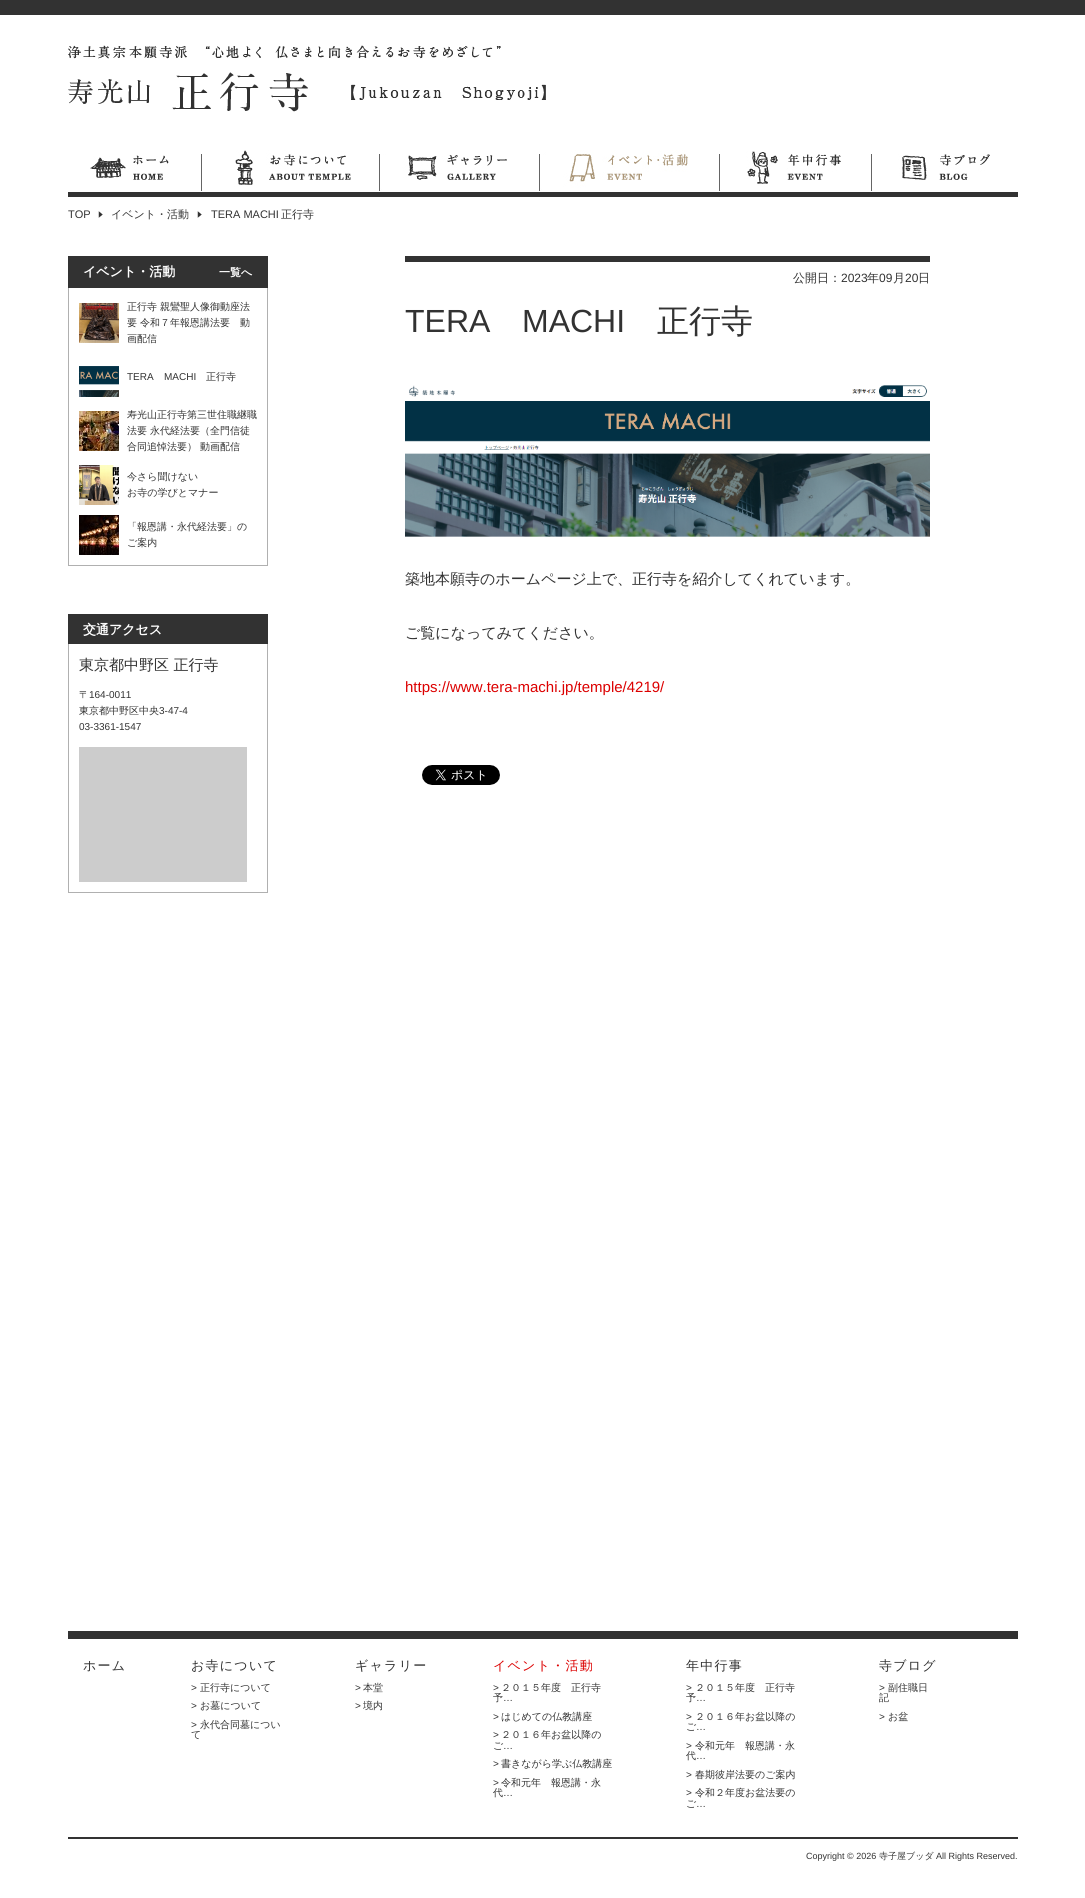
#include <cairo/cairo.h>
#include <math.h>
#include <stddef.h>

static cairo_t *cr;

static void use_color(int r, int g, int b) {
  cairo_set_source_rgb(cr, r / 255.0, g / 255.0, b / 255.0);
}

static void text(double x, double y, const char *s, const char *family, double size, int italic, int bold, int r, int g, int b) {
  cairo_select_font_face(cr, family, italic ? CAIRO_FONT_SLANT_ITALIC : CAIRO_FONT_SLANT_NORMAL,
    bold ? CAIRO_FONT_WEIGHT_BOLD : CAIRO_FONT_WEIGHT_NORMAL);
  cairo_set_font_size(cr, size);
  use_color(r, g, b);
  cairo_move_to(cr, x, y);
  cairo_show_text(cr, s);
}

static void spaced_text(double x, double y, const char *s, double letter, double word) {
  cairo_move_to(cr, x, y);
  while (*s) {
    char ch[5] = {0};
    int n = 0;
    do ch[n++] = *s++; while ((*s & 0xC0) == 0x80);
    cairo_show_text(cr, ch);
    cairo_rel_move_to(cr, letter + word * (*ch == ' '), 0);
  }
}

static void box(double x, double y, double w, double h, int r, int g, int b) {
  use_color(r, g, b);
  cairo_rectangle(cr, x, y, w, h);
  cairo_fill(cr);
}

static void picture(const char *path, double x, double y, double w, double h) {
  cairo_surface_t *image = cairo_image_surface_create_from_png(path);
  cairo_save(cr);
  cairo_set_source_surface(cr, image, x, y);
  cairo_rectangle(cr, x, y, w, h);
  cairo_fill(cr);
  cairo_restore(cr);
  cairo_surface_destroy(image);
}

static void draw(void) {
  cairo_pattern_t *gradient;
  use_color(255, 255, 255);
  cairo_paint(cr);
  box(0, 0, 1085, 15, 50, 50, 50);
  picture("img_01.png", 68, 45, 478, 67);
  box(68, 192, 950, 5, 50, 50, 50);
  picture("img_02.png", 90, 155, 79, 25);
  picture("img_03.png", 201, 150, 150, 41);
  picture("img_04.png", 379, 154, 128, 37);
  picture("img_05.png", 539, 150, 149, 41);
  picture("img_06.png", 719, 151, 122, 40);
  picture("img_07.png", 871, 154, 119, 37);
  picture("img_08.png", 98, 211, 5, 7);
  picture("img_08.png", 197, 211, 5, 7);
  box(267, 288, 1, 278, 176, 176, 176);
  box(68, 565, 200, 1, 176, 176, 176);
  box(68, 288, 1, 278, 176, 176, 176);
  box(68, 256, 200, 32, 50, 50, 50);
  picture("img_09.png", 79, 303, 40, 40);
  picture("img_10.png", 79, 366, 40, 31);
  picture("img_11.png", 79, 411, 40, 40);
  picture("img_12.png", 79, 465, 40, 40);
  picture("img_13.png", 79, 515, 40, 40);
  box(267, 644, 1, 249, 176, 176, 176);
  box(68, 892, 200, 1, 176, 176, 176);
  box(68, 644, 1, 249, 176, 176, 176);
  box(68, 614, 200, 30, 50, 50, 50);
  box(79, 747, 168, 135, 204, 204, 204);
  box(405, 256, 525, 6, 50, 50, 50);
  picture("img_14.png", 405, 385, 525, 152);
  picture("img_15.png", 422, 765, 78, 20);
  box(68, 1631, 950, 8, 50, 50, 50);
  box(68, 1837, 950, 2, 50, 50, 50);
  text(68, 218, "TOP", "Liberation Sans", 11, 0, 0, 50, 50, 50);
  text(111, 218, "イベント・活動", "WenQuanYi Zen Hei Medium", 11, 0, 0, 50, 50, 50);
  text(211, 218, "TERA MACHI", "Liberation Sans", 11, 0, 0, 50, 50, 50);
  text(281, 218, "正行寺", "WenQuanYi Zen Hei Medium", 11, 0, 0, 50, 50, 50);
  text(83, 276, "イベント・活動", "WenQuanYi Zen Hei", 13, 0, 1, 255, 255, 255);
  text(219, 276, "一覧へ", "WenQuanYi Zen Hei", 11, 0, 1, 255, 255, 255);
  text(127, 310, "正行寺 親鸞聖人像御動座法", "WenQuanYi Zen Hei Medium", 10, 0, 0, 50, 50, 50);
  text(127, 326, "要 令和７年報恩講法要　動", "WenQuanYi Zen Hei Medium", 10, 0, 0, 50, 50, 50);
  text(127, 342, "画配信", "WenQuanYi Zen Hei Medium", 10, 0, 0, 50, 50, 50);
  gradient = cairo_pattern_create_linear(192, 342, 192, 347);
  cairo_pattern_add_color_stop_rgba(gradient, 0, 1, 1, 1, 0);
  cairo_pattern_add_color_stop_rgba(gradient, 0.1, 1, 1, 1, 0);
  cairo_pattern_add_color_stop_rgba(gradient, 1, 1, 1, 1, 1);
  cairo_set_source(cr, gradient);
  cairo_pattern_destroy(gradient);
  cairo_rectangle(cr, 127, 343, 29, 1);
  cairo_fill(cr);
  text(127, 380, "TERA", "Liberation Sans", 10, 0, 0, 50, 50, 50);
  text(164, 380, "MACHI", "Liberation Sans", 10, 0, 0, 50, 50, 50);
  text(206, 380, "正行寺", "WenQuanYi Zen Hei Medium", 10, 0, 0, 50, 50, 50);
  gradient = cairo_pattern_create_linear(192, 380, 192, 385);
  cairo_pattern_add_color_stop_rgba(gradient, 0, 1, 1, 1, 0);
  cairo_pattern_add_color_stop_rgba(gradient, 0.1, 1, 1, 1, 0);
  cairo_pattern_add_color_stop_rgba(gradient, 1, 1, 1, 1, 1);
  cairo_set_source(cr, gradient);
  cairo_pattern_destroy(gradient);
  cairo_rectangle(cr, 218, 381, 15, 1);
  cairo_fill(cr);
  text(127, 418, "寿光山正行寺第三世住職継職", "WenQuanYi Zen Hei Medium", 10, 0, 0, 50, 50, 50);
  text(127, 434, "法要 永代経法要（全門信徒", "WenQuanYi Zen Hei Medium", 10, 0, 0, 50, 50, 50);
  text(127, 450, "合同追悼法要） 動画配信", "WenQuanYi Zen Hei Medium", 10, 0, 0, 50, 50, 50);
  gradient = cairo_pattern_create_linear(192, 450, 192, 455);
  cairo_pattern_add_color_stop_rgba(gradient, 0, 1, 1, 1, 0);
  cairo_pattern_add_color_stop_rgba(gradient, 0.1, 1, 1, 1, 0);
  cairo_pattern_add_color_stop_rgba(gradient, 1, 1, 1, 1, 1);
  cairo_set_source(cr, gradient);
  cairo_pattern_destroy(gradient);
  cairo_rectangle(cr, 127, 451, 112, 1);
  cairo_fill(cr);
  text(127, 480, "今さら聞けない", "WenQuanYi Zen Hei Medium", 10, 0, 0, 50, 50, 50);
  text(127, 496, "お寺の学びとマナー", "WenQuanYi Zen Hei Medium", 10, 0, 0, 50, 50, 50);
  gradient = cairo_pattern_create_linear(192, 496, 192, 501);
  cairo_pattern_add_color_stop_rgba(gradient, 0, 1, 1, 1, 0);
  cairo_pattern_add_color_stop_rgba(gradient, 0.1, 1, 1, 1, 0);
  cairo_pattern_add_color_stop_rgba(gradient, 1, 1, 1, 1, 1);
  cairo_set_source(cr, gradient);
  cairo_pattern_destroy(gradient);
  cairo_rectangle(cr, 127, 497, 74, 1);
  cairo_fill(cr);
  text(127, 530, "「報恩講・永代経法要」の", "WenQuanYi Zen Hei Medium", 10, 0, 0, 50, 50, 50);
  text(127, 546, "ご案内", "WenQuanYi Zen Hei Medium", 10, 0, 0, 50, 50, 50);
  gradient = cairo_pattern_create_linear(192, 546, 192, 551);
  cairo_pattern_add_color_stop_rgba(gradient, 0, 1, 1, 1, 0);
  cairo_pattern_add_color_stop_rgba(gradient, 0.1, 1, 1, 1, 0);
  cairo_pattern_add_color_stop_rgba(gradient, 1, 1, 1, 1, 1);
  cairo_set_source(cr, gradient);
  cairo_pattern_destroy(gradient);
  cairo_rectangle(cr, 142, 547, 14, 1);
  cairo_fill(cr);
  text(83, 634, "交通アクセス", "WenQuanYi Zen Hei", 13, 0, 1, 255, 255, 255);
  text(79, 670, "東京都中野区 正行寺", "WenQuanYi Zen Hei Medium", 15, 0, 0, 50, 50, 50);
  text(79, 698, "〒", "WenQuanYi Zen Hei Medium", 10, 0, 0, 50, 50, 50);
  text(89, 698, "164-0011", "Liberation Sans", 10, 0, 0, 50, 50, 50);
  text(79, 714, "東京都中野区中央", "WenQuanYi Zen Hei Medium", 10, 0, 0, 50, 50, 50);
  text(159, 714, "3-47-4", "Liberation Sans", 10, 0, 0, 50, 50, 50);
  text(79, 730, "03-3361-1547", "Liberation Sans", 10, 0, 0, 50, 50, 50);
  text(793, 282, "公開日：", "WenQuanYi Zen Hei Medium", 12, 0, 0, 50, 50, 50);
  text(841, 282, "2023", "Liberation Sans", 12, 0, 0, 50, 50, 50);
  text(867, 282, "年", "WenQuanYi Zen Hei Medium", 12, 0, 0, 50, 50, 50);
  text(879, 282, "09", "Liberation Sans", 12, 0, 0, 50, 50, 50);
  text(893, 282, "月", "WenQuanYi Zen Hei Medium", 12, 0, 0, 50, 50, 50);
  text(905, 282, "20", "Liberation Sans", 12, 0, 0, 50, 50, 50);
  text(918, 282, "日", "WenQuanYi Zen Hei Medium", 12, 0, 0, 50, 50, 50);
  text(405, 332, "TERA", "Liberation Sans", 32, 0, 0, 50, 50, 50);
  text(522, 332, "MACHI", "Liberation Sans", 32, 0, 0, 50, 50, 50);
  text(657, 332, "正行寺", "WenQuanYi Zen Hei Medium", 32, 0, 0, 50, 50, 50);
  text(405, 584, "築地本願寺のホームページ上で、正行寺を紹介してくれています。", "WenQuanYi Zen Hei Medium", 15, 0, 0, 50, 50, 50);
  text(405, 638, "ご覧になってみてください。", "WenQuanYi Zen Hei Medium", 15, 0, 0, 50, 50, 50);
  text(405, 692, "https://www.tera-machi.jp/temple/4219/", "Liberation Sans", 15, 0, 0, 220, 0, 0);
  cairo_select_font_face(cr, "WenQuanYi Zen Hei Medium", CAIRO_FONT_SLANT_NORMAL, CAIRO_FONT_WEIGHT_NORMAL);
  cairo_set_font_size(cr, 13);
  use_color(50, 50, 50);
  spaced_text(83, 1670, "ホーム", 1.25, 0);
  spaced_text(191, 1670, "お寺について", 1.25, 0);
  text(191, 1691, ">", "Liberation Sans", 10, 0, 0, 50, 50, 50);
  text(200, 1691, "正行寺について", "WenQuanYi Zen Hei Medium", 10, 0, 0, 50, 50, 50);
  text(191, 1709, ">", "Liberation Sans", 10, 0, 0, 50, 50, 50);
  text(200, 1709, "お墓について", "WenQuanYi Zen Hei Medium", 10, 0, 0, 50, 50, 50);
  text(191, 1728, ">", "Liberation Sans", 10, 0, 0, 50, 50, 50);
  text(200, 1728, "永代合同墓につい", "WenQuanYi Zen Hei Medium", 10, 0, 0, 50, 50, 50);
  text(191, 1738, "て", "WenQuanYi Zen Hei Medium", 10, 0, 0, 50, 50, 50);
  cairo_set_font_size(cr, 13);
  spaced_text(355, 1670, "ギャラリー", 1.25, 0);
  text(355, 1691, ">", "Liberation Sans", 10, 0, 0, 50, 50, 50);
  text(363, 1691, "本堂", "WenQuanYi Zen Hei Medium", 10, 0, 0, 50, 50, 50);
  text(355, 1709, ">", "Liberation Sans", 10, 0, 0, 50, 50, 50);
  text(363, 1709, "境内", "WenQuanYi Zen Hei Medium", 10, 0, 0, 50, 50, 50);
  cairo_set_font_size(cr, 13);
  use_color(220, 0, 0);
  spaced_text(493, 1670, "イベント・活動", 1.25, 0);
  text(493, 1691, ">", "Liberation Sans", 10, 0, 0, 50, 50, 50);
  text(501, 1691, "２０１５年度　正行寺", "WenQuanYi Zen Hei Medium", 10, 0, 0, 50, 50, 50);
  text(493, 1701, "予", "WenQuanYi Zen Hei Medium", 10, 0, 0, 50, 50, 50);
  text(503, 1701, "…", "Liberation Sans", 10, 0, 0, 50, 50, 50);
  text(493, 1720, ">", "Liberation Sans", 10, 0, 0, 50, 50, 50);
  text(501, 1720, "はじめての仏教講座", "WenQuanYi Zen Hei Medium", 10, 0, 0, 50, 50, 50);
  text(493, 1738, ">", "Liberation Sans", 10, 0, 0, 50, 50, 50);
  text(501, 1738, "２０１６年お盆以降の", "WenQuanYi Zen Hei Medium", 10, 0, 0, 50, 50, 50);
  text(493, 1749, "ご", "WenQuanYi Zen Hei Medium", 10, 0, 0, 50, 50, 50);
  text(503, 1749, "…", "Liberation Sans", 10, 0, 0, 50, 50, 50);
  text(493, 1767, ">", "Liberation Sans", 10, 0, 0, 50, 50, 50);
  text(501, 1767, "書きながら学ぶ仏教講座", "WenQuanYi Zen Hei Medium", 10, 0, 0, 50, 50, 50);
  text(493, 1786, ">", "Liberation Sans", 10, 0, 0, 50, 50, 50);
  text(501, 1786, "令和元年　報恩講・永", "WenQuanYi Zen Hei Medium", 10, 0, 0, 50, 50, 50);
  text(493, 1796, "代", "WenQuanYi Zen Hei Medium", 10, 0, 0, 50, 50, 50);
  text(503, 1796, "…", "Liberation Sans", 10, 0, 0, 50, 50, 50);
  cairo_select_font_face(cr, "WenQuanYi Zen Hei Medium", CAIRO_FONT_SLANT_NORMAL, CAIRO_FONT_WEIGHT_NORMAL);
  cairo_set_font_size(cr, 13);
  spaced_text(686, 1670, "年中行事", 1.25, 0);
  text(686, 1691, ">", "Liberation Sans", 10, 0, 0, 50, 50, 50);
  text(695, 1691, "２０１５年度　正行寺", "WenQuanYi Zen Hei Medium", 10, 0, 0, 50, 50, 50);
  text(686, 1701, "予", "WenQuanYi Zen Hei Medium", 10, 0, 0, 50, 50, 50);
  text(696, 1701, "…", "Liberation Sans", 10, 0, 0, 50, 50, 50);
  text(686, 1720, ">", "Liberation Sans", 10, 0, 0, 50, 50, 50);
  text(695, 1720, "２０１６年お盆以降の", "WenQuanYi Zen Hei Medium", 10, 0, 0, 50, 50, 50);
  text(686, 1730, "ご", "WenQuanYi Zen Hei Medium", 10, 0, 0, 50, 50, 50);
  text(696, 1730, "…", "Liberation Sans", 10, 0, 0, 50, 50, 50);
  text(686, 1749, ">", "Liberation Sans", 10, 0, 0, 50, 50, 50);
  text(695, 1749, "令和元年　報恩講・永", "WenQuanYi Zen Hei Medium", 10, 0, 0, 50, 50, 50);
  text(686, 1759, "代", "WenQuanYi Zen Hei Medium", 10, 0, 0, 50, 50, 50);
  text(696, 1759, "…", "Liberation Sans", 10, 0, 0, 50, 50, 50);
  text(686, 1778, ">", "Liberation Sans", 10, 0, 0, 50, 50, 50);
  text(695, 1778, "春期彼岸法要のご案内", "WenQuanYi Zen Hei Medium", 10, 0, 0, 50, 50, 50);
  text(686, 1796, ">", "Liberation Sans", 10, 0, 0, 50, 50, 50);
  text(695, 1796, "令和２年度お盆法要の", "WenQuanYi Zen Hei Medium", 10, 0, 0, 50, 50, 50);
  text(686, 1807, "ご", "WenQuanYi Zen Hei Medium", 10, 0, 0, 50, 50, 50);
  text(696, 1807, "…", "Liberation Sans", 10, 0, 0, 50, 50, 50);
  cairo_select_font_face(cr, "WenQuanYi Zen Hei Medium", CAIRO_FONT_SLANT_NORMAL, CAIRO_FONT_WEIGHT_NORMAL);
  cairo_set_font_size(cr, 13);
  spaced_text(879, 1670, "寺ブログ", 1.25, 0);
  text(879, 1691, ">", "Liberation Sans", 10, 0, 0, 50, 50, 50);
  text(888, 1691, "副住職日", "WenQuanYi Zen Hei Medium", 10, 0, 0, 50, 50, 50);
  text(879, 1701, "記", "WenQuanYi Zen Hei Medium", 10, 0, 0, 50, 50, 50);
  text(879, 1720, ">", "Liberation Sans", 10, 0, 0, 50, 50, 50);
  text(888, 1720, "お盆", "WenQuanYi Zen Hei Medium", 10, 0, 0, 50, 50, 50);
  text(806, 1859, "Copyright © 2026", "Liberation Sans", 9, 0, 0, 50, 50, 50);
  text(879, 1859, "寺子屋ブッダ", "WenQuanYi Zen Hei Medium", 9, 0, 0, 50, 50, 50);
  text(936, 1859, "All Rights Reserved.", "Liberation Sans", 9, 0, 0, 50, 50, 50);
}

int main(void) {
  cairo_surface_t *surface = cairo_image_surface_create(CAIRO_FORMAT_RGB24, 1085, 1898);
  cr = cairo_create(surface);
  cairo_font_options_t *options = cairo_font_options_create();
  cairo_font_options_set_hint_metrics(options, CAIRO_HINT_METRICS_OFF);
  cairo_font_options_set_hint_style(options, CAIRO_HINT_STYLE_NONE);
  cairo_set_font_options(cr, options);
  cairo_set_miter_limit(cr, 4);
  draw();
  cairo_surface_write_to_png(surface, "out.png");
  cairo_font_options_destroy(options);
  cairo_destroy(cr);
  cairo_surface_destroy(surface);
  return 0;
}
